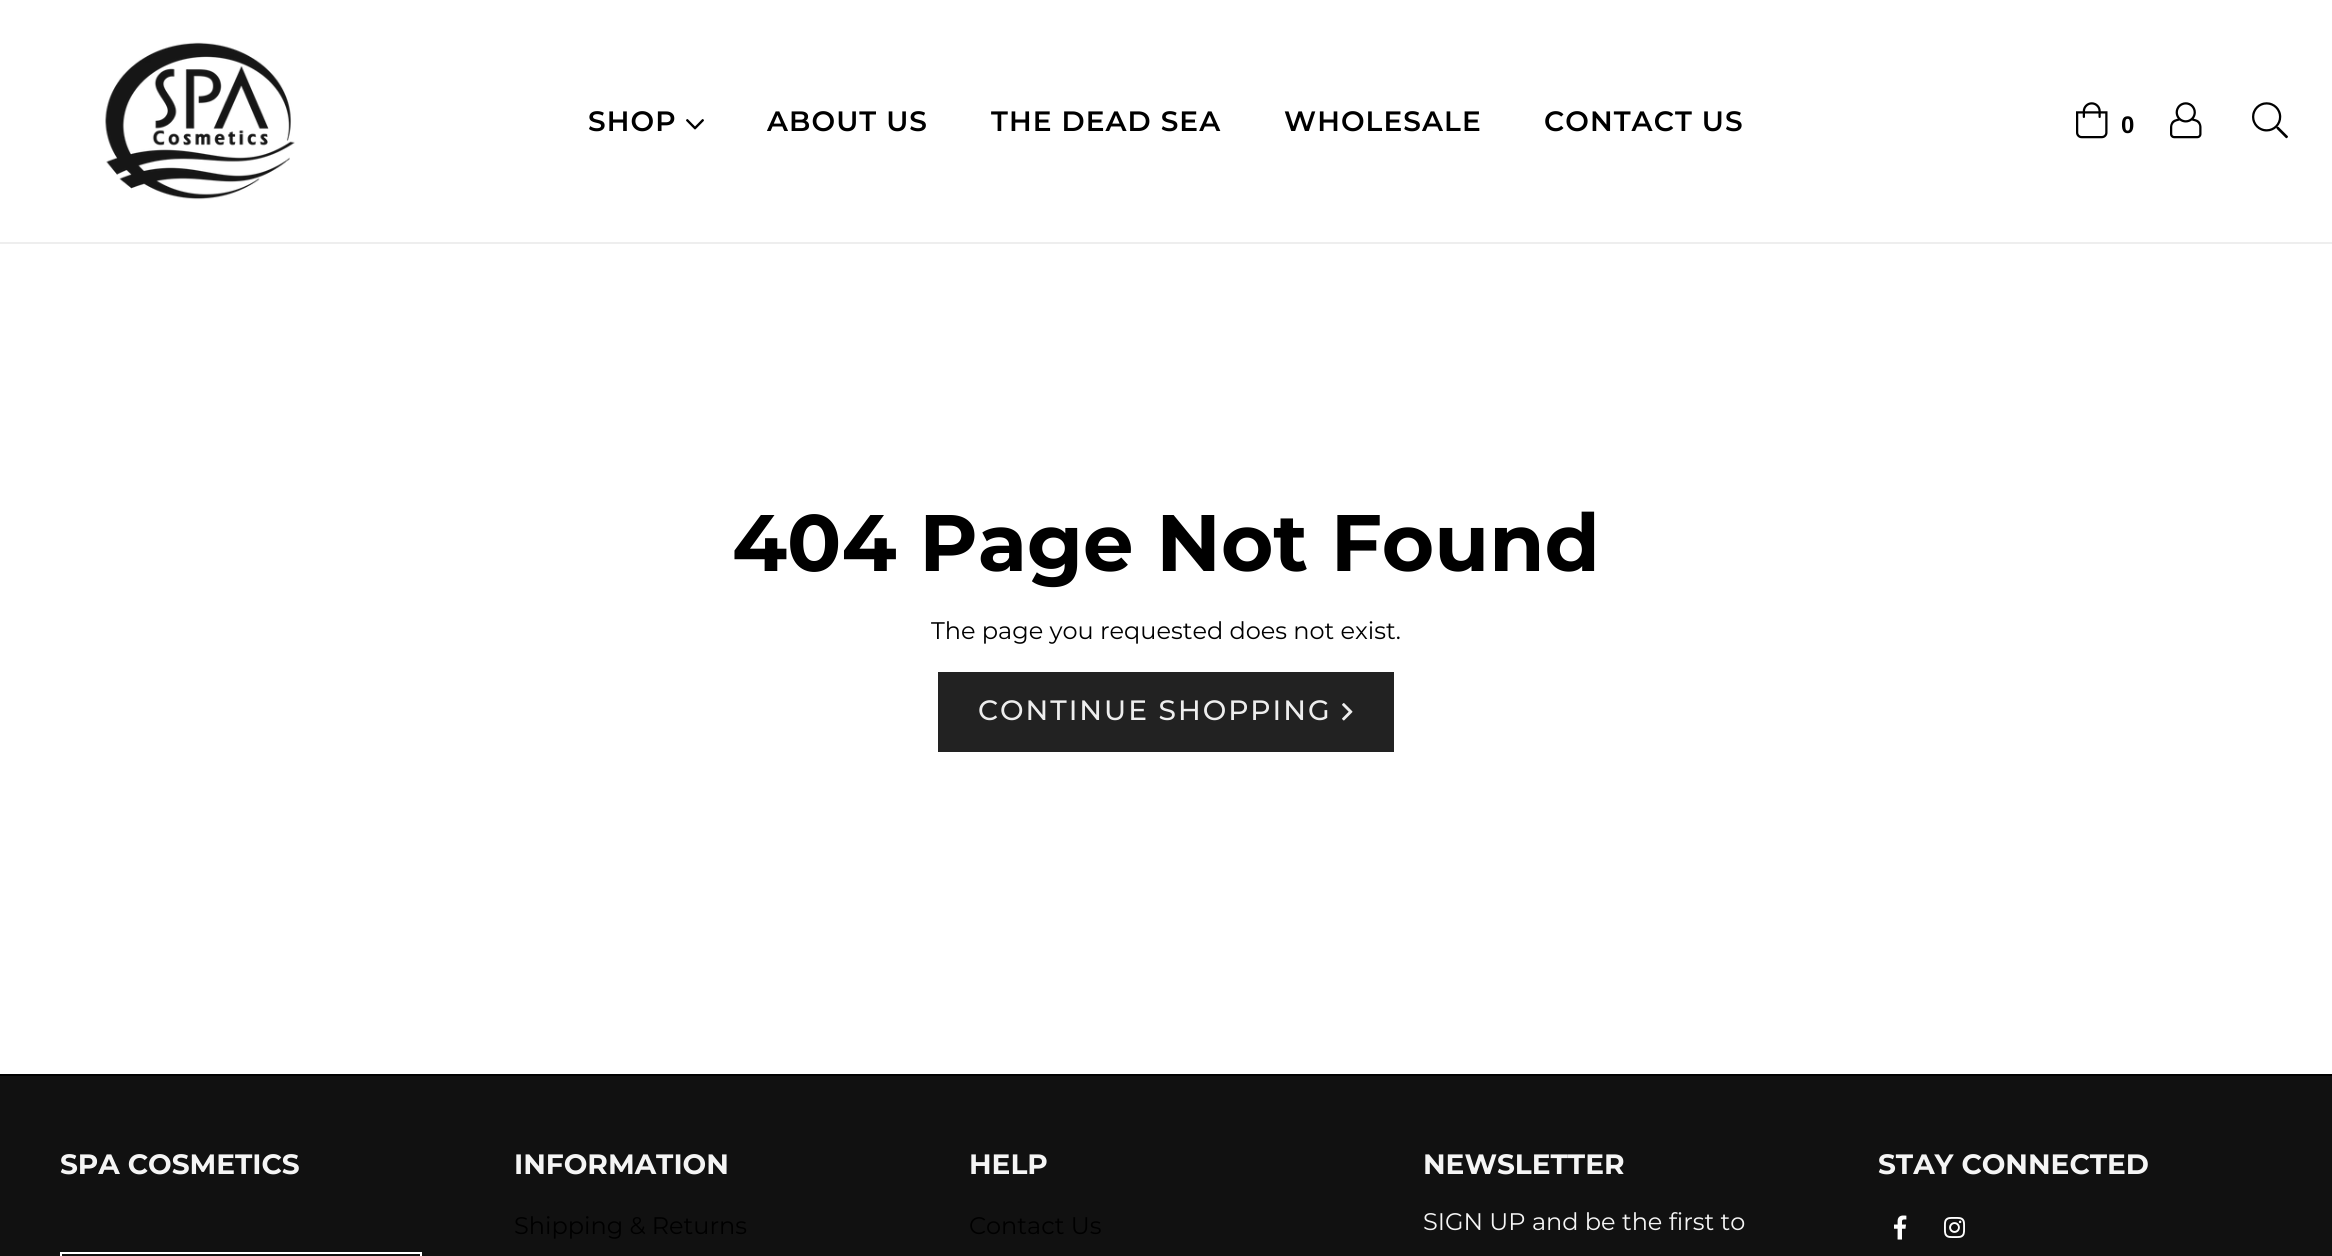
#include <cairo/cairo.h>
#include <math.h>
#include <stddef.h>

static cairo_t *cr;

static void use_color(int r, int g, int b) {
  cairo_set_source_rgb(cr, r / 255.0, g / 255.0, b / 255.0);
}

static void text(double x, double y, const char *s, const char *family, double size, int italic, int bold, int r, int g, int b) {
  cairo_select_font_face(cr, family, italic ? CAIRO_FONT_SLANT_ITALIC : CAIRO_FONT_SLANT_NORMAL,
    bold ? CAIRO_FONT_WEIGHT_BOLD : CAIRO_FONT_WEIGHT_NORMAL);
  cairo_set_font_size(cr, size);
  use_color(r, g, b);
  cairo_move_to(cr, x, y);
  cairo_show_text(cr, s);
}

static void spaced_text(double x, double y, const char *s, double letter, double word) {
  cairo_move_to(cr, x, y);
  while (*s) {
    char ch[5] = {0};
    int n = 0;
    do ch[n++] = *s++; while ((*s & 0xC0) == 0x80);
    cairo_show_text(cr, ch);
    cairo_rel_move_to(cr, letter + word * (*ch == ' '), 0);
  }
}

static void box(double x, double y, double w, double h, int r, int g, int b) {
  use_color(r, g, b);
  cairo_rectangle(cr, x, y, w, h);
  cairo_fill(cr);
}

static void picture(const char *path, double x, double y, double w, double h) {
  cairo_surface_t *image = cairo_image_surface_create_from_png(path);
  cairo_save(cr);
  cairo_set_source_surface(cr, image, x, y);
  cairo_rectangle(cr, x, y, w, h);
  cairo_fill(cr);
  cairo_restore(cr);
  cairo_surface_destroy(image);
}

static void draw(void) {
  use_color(255, 255, 255);
  cairo_paint(cr);
  box(0, 242, 2332, 2, 238, 238, 238);
  picture("img_01.png", 105, 42, 190, 158);
  picture("img_02.png", 686, 119, 18, 11);
  picture("img_03.png", 2076, 102, 32, 37);
  picture("img_04.png", 2170, 102, 32, 37);
  picture("img_05.png", 2252, 102, 36, 37);
  box(938, 672, 456, 80, 34, 34, 34);
  picture("img_06.png", 1342, 703, 11, 18);
  box(0, 1076, 2332, 180, 17, 17, 17);
  box(0, 1074, 2332, 2, 0, 0, 0);
  cairo_rectangle(cr, 61, 1253, 360, 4);
  use_color(255, 255, 255);
  cairo_stroke(cr);
  picture("img_07.png", 1894, 1215, 13, 25);
  picture("img_08.png", 1944, 1217, 21, 21);
  cairo_select_font_face(cr, "Montserrat SemiBold", CAIRO_FONT_SLANT_NORMAL, CAIRO_FONT_WEIGHT_NORMAL);
  cairo_set_font_size(cr, 28);
  use_color(0, 0, 0);
  spaced_text(588, 131, "SHOP", 1.1, 0);
  spaced_text(767, 131, "ABOUT US", 1.1, 0);
  spaced_text(991, 131, "THE DEAD SEA", 1.1, 0);
  spaced_text(1284, 131, "WHOLESALE", 1.1, 0);
  spaced_text(1544, 131, "CONTACT US", 1.1, 0);
  text(2121, 133, "0", "Liberation Sans", 24, 0, 1, 0, 0, 0);
  text(732, 571, "404 Page Not Found", "Montserrat", 80, 0, 1, 0, 0, 0);
  text(931, 639, "The page you requested does not exist.", "Montserrat", 24, 0, 0, 0, 0, 0);
  cairo_select_font_face(cr, "Montserrat Medium", CAIRO_FONT_SLANT_NORMAL, CAIRO_FONT_WEIGHT_NORMAL);
  cairo_set_font_size(cr, 28);
  use_color(238, 238, 238);
  spaced_text(978, 720, "CONTINUE SHOPPING", 2, 0);
  text(60, 1174, "SPA COSMETICS", "Montserrat", 28, 0, 1, 245, 245, 245);
  text(514, 1174, "INFORMATION", "Montserrat", 28, 0, 1, 245, 245, 245);
  text(514, 1234, "Shipping & Returns", "Montserrat", 24, 0, 0, 0, 0, 0);
  text(969, 1174, "HELP", "Montserrat", 28, 0, 1, 245, 245, 245);
  text(969, 1234, "Contact Us", "Montserrat", 24, 0, 0, 0, 0, 0);
  text(1423, 1174, "NEWSLETTER", "Montserrat", 28, 0, 1, 245, 245, 245);
  text(1423, 1230, "SIGN UP and be the first to", "Montserrat", 24, 0, 0, 245, 245, 245);
  text(1878, 1174, "STAY CONNECTED", "Montserrat", 28, 0, 1, 245, 245, 245);
}

int main(void) {
  cairo_surface_t *surface = cairo_image_surface_create(CAIRO_FORMAT_RGB24, 2332, 1256);
  cr = cairo_create(surface);
  cairo_font_options_t *options = cairo_font_options_create();
  cairo_font_options_set_hint_metrics(options, CAIRO_HINT_METRICS_OFF);
  cairo_font_options_set_hint_style(options, CAIRO_HINT_STYLE_NONE);
  cairo_set_font_options(cr, options);
  cairo_set_miter_limit(cr, 4);
  draw();
  cairo_surface_write_to_png(surface, "out.png");
  cairo_font_options_destroy(options);
  cairo_destroy(cr);
  cairo_surface_destroy(surface);
  return 0;
}
